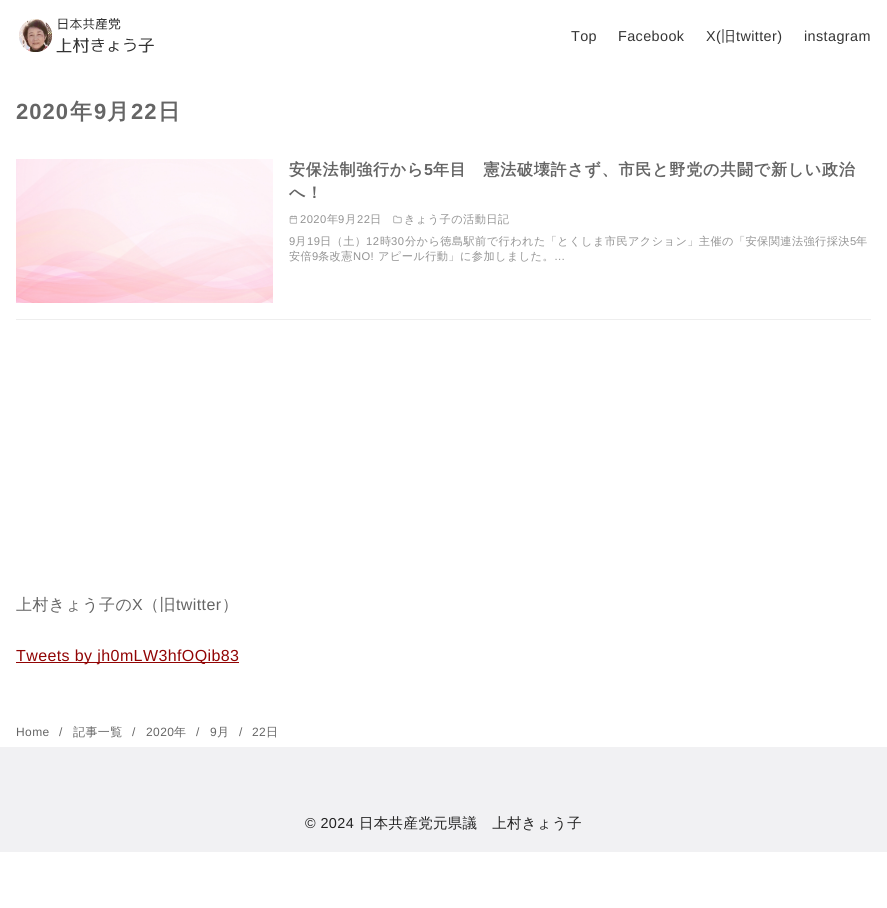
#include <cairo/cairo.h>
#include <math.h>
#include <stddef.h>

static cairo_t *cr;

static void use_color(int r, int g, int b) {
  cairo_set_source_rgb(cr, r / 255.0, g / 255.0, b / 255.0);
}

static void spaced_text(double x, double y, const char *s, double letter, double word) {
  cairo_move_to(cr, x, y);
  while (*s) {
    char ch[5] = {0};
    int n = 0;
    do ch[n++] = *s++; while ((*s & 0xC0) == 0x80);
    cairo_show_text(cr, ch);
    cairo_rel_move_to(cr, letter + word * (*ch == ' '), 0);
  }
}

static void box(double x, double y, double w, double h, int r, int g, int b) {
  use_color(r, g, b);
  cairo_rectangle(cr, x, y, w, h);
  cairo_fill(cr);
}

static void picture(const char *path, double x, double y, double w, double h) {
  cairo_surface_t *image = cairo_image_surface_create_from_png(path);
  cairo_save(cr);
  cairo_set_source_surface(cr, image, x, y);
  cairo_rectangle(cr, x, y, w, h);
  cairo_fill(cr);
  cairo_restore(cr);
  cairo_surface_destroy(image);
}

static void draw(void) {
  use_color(255, 255, 255);
  cairo_paint(cr);
  picture("img_01.png", 19, 18, 135, 35);
  box(16, 319, 855, 1, 238, 238, 238);
  picture("img_02.png", 16, 159, 257, 144);
  picture("img_03.png", 289, 215, 8, 9);
  picture("img_04.png", 393, 215, 9, 9);
  box(16, 662, 223, 1, 145, 4, 4);
  box(0, 747, 887, 105, 241, 241, 243);
  cairo_select_font_face(cr, "Liberation Sans", CAIRO_FONT_SLANT_NORMAL, CAIRO_FONT_WEIGHT_NORMAL);
  cairo_set_font_size(cr, 14.4);
  use_color(53, 53, 53);
  spaced_text(571, 41, "Top", 0.4, 0);
  spaced_text(618, 41, "Facebook", 0.4, 0);
  spaced_text(706, 41, "X(", 0.4, 0);
  cairo_select_font_face(cr, "WenQuanYi Zen Hei Medium", CAIRO_FONT_SLANT_NORMAL, CAIRO_FONT_WEIGHT_NORMAL);
  spaced_text(721, 41, "旧", 0.4, 0);
  cairo_select_font_face(cr, "Liberation Sans", CAIRO_FONT_SLANT_NORMAL, CAIRO_FONT_WEIGHT_NORMAL);
  spaced_text(736, 41, "twitter)", 0.4, 0);
  spaced_text(804, 41, "instagram", 0.4, 0);
  cairo_select_font_face(cr, "Liberation Sans", CAIRO_FONT_SLANT_NORMAL, CAIRO_FONT_WEIGHT_BOLD);
  cairo_set_font_size(cr, 22);
  use_color(101, 101, 101);
  spaced_text(16, 119, "2020", 1, 0);
  cairo_select_font_face(cr, "WenQuanYi Zen Hei", CAIRO_FONT_SLANT_NORMAL, CAIRO_FONT_WEIGHT_BOLD);
  spaced_text(70, 119, "年", 1, 0);
  cairo_select_font_face(cr, "Liberation Sans", CAIRO_FONT_SLANT_NORMAL, CAIRO_FONT_WEIGHT_BOLD);
  spaced_text(94, 119, "9", 1, 0);
  cairo_select_font_face(cr, "WenQuanYi Zen Hei", CAIRO_FONT_SLANT_NORMAL, CAIRO_FONT_WEIGHT_BOLD);
  spaced_text(107, 119, "月", 1, 0);
  cairo_select_font_face(cr, "Liberation Sans", CAIRO_FONT_SLANT_NORMAL, CAIRO_FONT_WEIGHT_BOLD);
  spaced_text(131, 119, "22", 1, 0);
  cairo_select_font_face(cr, "WenQuanYi Zen Hei", CAIRO_FONT_SLANT_NORMAL, CAIRO_FONT_WEIGHT_BOLD);
  spaced_text(158, 119, "日", 1, 0);
  cairo_set_font_size(cr, 16);
  spaced_text(289, 175, "安保法制強行から", 0.8, 0);
  cairo_select_font_face(cr, "Liberation Sans", CAIRO_FONT_SLANT_NORMAL, CAIRO_FONT_WEIGHT_BOLD);
  spaced_text(424, 175, "5", 0.8, 0);
  cairo_select_font_face(cr, "WenQuanYi Zen Hei", CAIRO_FONT_SLANT_NORMAL, CAIRO_FONT_WEIGHT_BOLD);
  spaced_text(433, 175, "年目　憲法破壊許さず、市民と野党の共闘で新しい政治", 0.8, 0);
  spaced_text(289, 198, "へ！", 0.8, 0);
  cairo_select_font_face(cr, "Liberation Sans", CAIRO_FONT_SLANT_NORMAL, CAIRO_FONT_WEIGHT_NORMAL);
  cairo_set_font_size(cr, 11.2);
  use_color(147, 147, 147);
  spaced_text(300, 223, "2020", 0.4, 0);
  cairo_select_font_face(cr, "WenQuanYi Zen Hei Medium", CAIRO_FONT_SLANT_NORMAL, CAIRO_FONT_WEIGHT_NORMAL);
  spaced_text(327, 223, "年", 0.4, 0);
  cairo_select_font_face(cr, "Liberation Sans", CAIRO_FONT_SLANT_NORMAL, CAIRO_FONT_WEIGHT_NORMAL);
  spaced_text(338, 223, "9", 0.4, 0);
  cairo_select_font_face(cr, "WenQuanYi Zen Hei Medium", CAIRO_FONT_SLANT_NORMAL, CAIRO_FONT_WEIGHT_NORMAL);
  spaced_text(345, 223, "月", 0.4, 0);
  cairo_select_font_face(cr, "Liberation Sans", CAIRO_FONT_SLANT_NORMAL, CAIRO_FONT_WEIGHT_NORMAL);
  spaced_text(357, 223, "22", 0.4, 0);
  cairo_select_font_face(cr, "WenQuanYi Zen Hei Medium", CAIRO_FONT_SLANT_NORMAL, CAIRO_FONT_WEIGHT_NORMAL);
  spaced_text(370, 223, "日", 0.4, 0);
  spaced_text(404, 223, "きょう子の活動日記", 0.4, 0);
  cairo_select_font_face(cr, "Liberation Sans", CAIRO_FONT_SLANT_NORMAL, CAIRO_FONT_WEIGHT_NORMAL);
  spaced_text(289, 245, "9", 0.4, 0);
  cairo_select_font_face(cr, "WenQuanYi Zen Hei Medium", CAIRO_FONT_SLANT_NORMAL, CAIRO_FONT_WEIGHT_NORMAL);
  spaced_text(295, 245, "月", 0.4, 0);
  cairo_select_font_face(cr, "Liberation Sans", CAIRO_FONT_SLANT_NORMAL, CAIRO_FONT_WEIGHT_NORMAL);
  spaced_text(307, 245, "19", 0.4, 0);
  cairo_select_font_face(cr, "WenQuanYi Zen Hei Medium", CAIRO_FONT_SLANT_NORMAL, CAIRO_FONT_WEIGHT_NORMAL);
  spaced_text(320, 245, "日（土）", 0.4, 0);
  cairo_select_font_face(cr, "Liberation Sans", CAIRO_FONT_SLANT_NORMAL, CAIRO_FONT_WEIGHT_NORMAL);
  spaced_text(366, 245, "12", 0.4, 0);
  cairo_select_font_face(cr, "WenQuanYi Zen Hei Medium", CAIRO_FONT_SLANT_NORMAL, CAIRO_FONT_WEIGHT_NORMAL);
  spaced_text(380, 245, "時", 0.4, 0);
  cairo_select_font_face(cr, "Liberation Sans", CAIRO_FONT_SLANT_NORMAL, CAIRO_FONT_WEIGHT_NORMAL);
  spaced_text(391, 245, "30", 0.4, 0);
  cairo_select_font_face(cr, "WenQuanYi Zen Hei Medium", CAIRO_FONT_SLANT_NORMAL, CAIRO_FONT_WEIGHT_NORMAL);
  spaced_text(405, 245, "分から徳島駅前で行われた「とくしま市民アクション」主催の「安保関連法強行採決", 0.4, 0);
  cairo_select_font_face(cr, "Liberation Sans", CAIRO_FONT_SLANT_NORMAL, CAIRO_FONT_WEIGHT_NORMAL);
  spaced_text(850, 245, "5", 0.4, 0);
  cairo_select_font_face(cr, "WenQuanYi Zen Hei Medium", CAIRO_FONT_SLANT_NORMAL, CAIRO_FONT_WEIGHT_NORMAL);
  spaced_text(856, 245, "年", 0.4, 0);
  spaced_text(289, 260, "安倍", 0.4, 0);
  cairo_select_font_face(cr, "Liberation Sans", CAIRO_FONT_SLANT_NORMAL, CAIRO_FONT_WEIGHT_NORMAL);
  spaced_text(312, 260, "9", 0.4, 0);
  cairo_select_font_face(cr, "WenQuanYi Zen Hei Medium", CAIRO_FONT_SLANT_NORMAL, CAIRO_FONT_WEIGHT_NORMAL);
  spaced_text(318, 260, "条改憲", 0.4, 0);
  cairo_select_font_face(cr, "Liberation Sans", CAIRO_FONT_SLANT_NORMAL, CAIRO_FONT_WEIGHT_NORMAL);
  spaced_text(353, 260, "NO!", 0.4, 0);
  cairo_select_font_face(cr, "WenQuanYi Zen Hei Medium", CAIRO_FONT_SLANT_NORMAL, CAIRO_FONT_WEIGHT_NORMAL);
  spaced_text(378, 260, "アピール行動」に参加しました。", 0.4, 0);
  cairo_select_font_face(cr, "Liberation Sans", CAIRO_FONT_SLANT_NORMAL, CAIRO_FONT_WEIGHT_NORMAL);
  spaced_text(554, 260, "…", 0.4, 0);
  cairo_select_font_face(cr, "WenQuanYi Zen Hei Medium", CAIRO_FONT_SLANT_NORMAL, CAIRO_FONT_WEIGHT_NORMAL);
  cairo_set_font_size(cr, 16);
  use_color(101, 101, 101);
  spaced_text(16, 610, "上村きょう子の", 0.4, 0);
  cairo_select_font_face(cr, "Liberation Sans", CAIRO_FONT_SLANT_NORMAL, CAIRO_FONT_WEIGHT_NORMAL);
  spaced_text(132, 610, "X", 0.4, 0);
  cairo_select_font_face(cr, "WenQuanYi Zen Hei Medium", CAIRO_FONT_SLANT_NORMAL, CAIRO_FONT_WEIGHT_NORMAL);
  spaced_text(143, 610, "（旧", 0.4, 0);
  cairo_select_font_face(cr, "Liberation Sans", CAIRO_FONT_SLANT_NORMAL, CAIRO_FONT_WEIGHT_NORMAL);
  spaced_text(176, 610, "twitter", 0.4, 0);
  cairo_select_font_face(cr, "WenQuanYi Zen Hei Medium", CAIRO_FONT_SLANT_NORMAL, CAIRO_FONT_WEIGHT_NORMAL);
  spaced_text(222, 610, "）", 0.4, 0);
  cairo_select_font_face(cr, "Liberation Sans", CAIRO_FONT_SLANT_NORMAL, CAIRO_FONT_WEIGHT_NORMAL);
  use_color(145, 4, 4);
  spaced_text(16, 661, "Tweets by jh0mLW3hfOQib83", 0.4, 0);
  cairo_set_font_size(cr, 12);
  use_color(101, 101, 101);
  spaced_text(16, 736, "Home", 0.4, 0);
  spaced_text(59, 736, "/", 0.4, 0);
  cairo_select_font_face(cr, "WenQuanYi Zen Hei Medium", CAIRO_FONT_SLANT_NORMAL, CAIRO_FONT_WEIGHT_NORMAL);
  spaced_text(73, 736, "記事一覧", 0.4, 0);
  cairo_select_font_face(cr, "Liberation Sans", CAIRO_FONT_SLANT_NORMAL, CAIRO_FONT_WEIGHT_NORMAL);
  spaced_text(132, 736, "/", 0.4, 0);
  spaced_text(146, 736, "2020", 0.4, 0);
  cairo_select_font_face(cr, "WenQuanYi Zen Hei Medium", CAIRO_FONT_SLANT_NORMAL, CAIRO_FONT_WEIGHT_NORMAL);
  spaced_text(174, 736, "年", 0.4, 0);
  cairo_select_font_face(cr, "Liberation Sans", CAIRO_FONT_SLANT_NORMAL, CAIRO_FONT_WEIGHT_NORMAL);
  spaced_text(196, 736, "/", 0.4, 0);
  spaced_text(210, 736, "9", 0.4, 0);
  cairo_select_font_face(cr, "WenQuanYi Zen Hei Medium", CAIRO_FONT_SLANT_NORMAL, CAIRO_FONT_WEIGHT_NORMAL);
  spaced_text(217, 736, "月", 0.4, 0);
  cairo_select_font_face(cr, "Liberation Sans", CAIRO_FONT_SLANT_NORMAL, CAIRO_FONT_WEIGHT_NORMAL);
  spaced_text(239, 736, "/", 0.4, 0);
  spaced_text(252, 736, "22", 0.4, 0);
  cairo_select_font_face(cr, "WenQuanYi Zen Hei Medium", CAIRO_FONT_SLANT_NORMAL, CAIRO_FONT_WEIGHT_NORMAL);
  spaced_text(266, 736, "日", 0.4, 0);
  cairo_select_font_face(cr, "Liberation Sans", CAIRO_FONT_SLANT_NORMAL, CAIRO_FONT_WEIGHT_NORMAL);
  cairo_set_font_size(cr, 14.4);
  use_color(34, 34, 34);
  spaced_text(305, 828, "© 2024", 0.4, 0);
  cairo_select_font_face(cr, "WenQuanYi Zen Hei Medium", CAIRO_FONT_SLANT_NORMAL, CAIRO_FONT_WEIGHT_NORMAL);
  spaced_text(359, 828, "日本共産党元県議　上村きょう子", 0.4, 0);
}

int main(void) {
  cairo_surface_t *surface = cairo_image_surface_create(CAIRO_FORMAT_RGB24, 887, 908);
  cr = cairo_create(surface);
  cairo_font_options_t *options = cairo_font_options_create();
  cairo_font_options_set_hint_metrics(options, CAIRO_HINT_METRICS_OFF);
  cairo_font_options_set_hint_style(options, CAIRO_HINT_STYLE_NONE);
  cairo_set_font_options(cr, options);
  cairo_set_miter_limit(cr, 4);
  draw();
  cairo_surface_write_to_png(surface, "out.png");
  cairo_font_options_destroy(options);
  cairo_destroy(cr);
  cairo_surface_destroy(surface);
  return 0;
}
